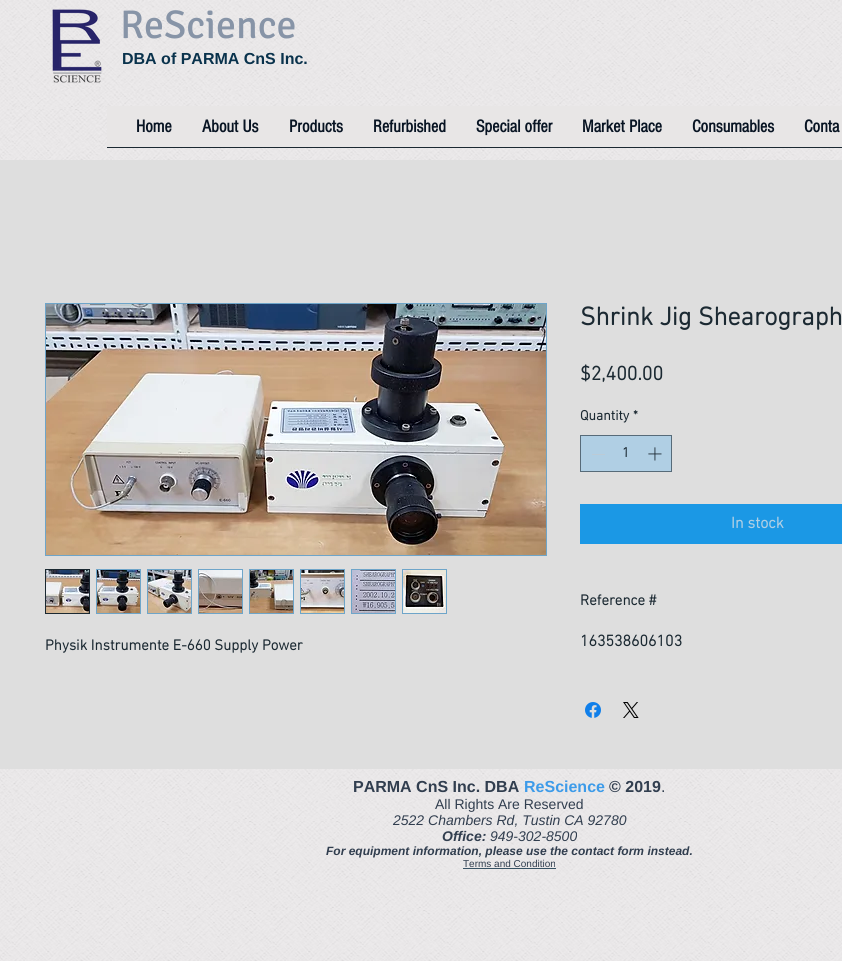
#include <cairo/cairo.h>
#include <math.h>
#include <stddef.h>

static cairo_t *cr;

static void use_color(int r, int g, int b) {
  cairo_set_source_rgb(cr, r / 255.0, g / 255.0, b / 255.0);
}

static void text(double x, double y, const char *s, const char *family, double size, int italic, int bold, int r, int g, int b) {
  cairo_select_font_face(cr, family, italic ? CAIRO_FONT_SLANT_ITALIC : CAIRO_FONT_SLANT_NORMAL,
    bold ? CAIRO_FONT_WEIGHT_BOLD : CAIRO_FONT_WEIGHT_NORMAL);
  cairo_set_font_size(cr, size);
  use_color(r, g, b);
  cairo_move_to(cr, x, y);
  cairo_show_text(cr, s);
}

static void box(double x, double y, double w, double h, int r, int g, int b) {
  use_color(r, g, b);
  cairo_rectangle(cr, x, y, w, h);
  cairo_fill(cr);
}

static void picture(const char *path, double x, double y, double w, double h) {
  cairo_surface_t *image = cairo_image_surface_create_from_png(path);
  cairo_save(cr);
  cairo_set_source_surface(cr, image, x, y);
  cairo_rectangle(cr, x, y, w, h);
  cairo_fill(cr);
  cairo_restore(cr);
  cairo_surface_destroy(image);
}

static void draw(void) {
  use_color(255, 255, 255);
  cairo_paint(cr);
  picture("img_01.png", 0, 0, 842, 961);
  picture("img_02.png", 52, 9, 50, 74);
  box(107, 106, 735, 41, 232, 230, 230);
  box(107, 147, 735, 1, 27, 41, 50);
  box(0, 160, 842, 609, 222, 222, 222);
  cairo_rectangle(cr, 45.5, 303.5, 501, 252);
  use_color(110, 165, 201);
  cairo_set_line_width(cr, 1);
  cairo_stroke(cr);
  picture("img_03.png", 46, 304, 500, 251);
  cairo_rectangle(cr, 45.5, 569.5, 44, 44);
  use_color(27, 41, 50);
  cairo_stroke(cr);
  picture("img_04.png", 46, 570, 43, 43);
  cairo_rectangle(cr, 96.5, 569.5, 44, 44);
  use_color(110, 165, 201);
  cairo_stroke(cr);
  picture("img_05.png", 97, 570, 43, 43);
  cairo_rectangle(cr, 147.5, 569.5, 44, 44);
  cairo_stroke(cr);
  picture("img_06.png", 148, 570, 43, 43);
  cairo_rectangle(cr, 198.5, 569.5, 44, 44);
  cairo_stroke(cr);
  picture("img_07.png", 199, 570, 43, 43);
  cairo_rectangle(cr, 249.5, 569.5, 44, 44);
  cairo_stroke(cr);
  picture("img_08.png", 250, 570, 43, 43);
  cairo_rectangle(cr, 300.5, 569.5, 44, 44);
  cairo_stroke(cr);
  picture("img_09.png", 301, 570, 43, 43);
  cairo_rectangle(cr, 351.5, 569.5, 44, 44);
  cairo_stroke(cr);
  picture("img_10.png", 352, 570, 43, 43);
  cairo_rectangle(cr, 402.5, 569.5, 44, 44);
  cairo_stroke(cr);
  picture("img_11.png", 403, 570, 43, 43);
  use_color(176, 207, 228);
  cairo_rectangle(cr, 580.5, 435.5, 91, 36);
  cairo_fill_preserve(cr);
  use_color(87, 107, 121);
  cairo_stroke(cr);
  box(592, 454, 13, 1, 188, 203, 214);
  picture("img_12.png", 648, 447, 14, 14);
  box(580, 504, 262, 40, 27, 152, 229);
  picture("img_13.png", 585, 702, 16, 16);
  picture("img_14.png", 623, 702, 16, 16);
  box(463, 868, 93, 1, 55, 82, 100);
  text(120, 38, "ReScience", "Signika", 40, 0, 0, 135, 148, 167);
  text(122, 64, "DBA of PARMA CnS Inc.", "Liberation Sans", 16, 0, 1, 9, 50, 76);
  text(136, 132, "Home", "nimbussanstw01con", 18, 0, 1, 8, 20, 35);
  text(202, 132, "About Us", "nimbussanstw01con", 18, 0, 1, 8, 20, 35);
  text(289, 132, "Products", "nimbussanstw01con", 18, 0, 1, 8, 20, 35);
  text(373, 132, "Refurbished", "nimbussanstw01con", 18, 0, 1, 8, 20, 35);
  text(476, 132, "Special offer", "nimbussanstw01con", 18, 0, 1, 8, 20, 35);
  text(582, 132, "Market Place", "nimbussanstw01con", 18, 0, 1, 8, 20, 35);
  text(692, 132, "Consumables", "nimbussanstw01con", 18, 0, 1, 8, 20, 35);
  text(804, 132, "Conta", "nimbussanstw01con", 18, 0, 1, 8, 20, 35);
  text(45, 650, "Physik Instrumente E-660 Supply Power", "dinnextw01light", 15, 0, 1, 27, 41, 50);
  text(580, 325, "Shrink Jig Shearograph", "dinnextw01light", 26, 0, 1, 27, 41, 50);
  text(580, 380, "$2,400.00", "dinnextw01light", 20, 0, 1, 27, 41, 50);
  text(580, 420, "Quantity", "dinnextw01light", 14, 0, 1, 27, 41, 50);
  text(633, 420, "*", "dinnextw01light", 14, 0, 1, 27, 41, 50);
  text(622, 457, "1", "dinnextw01light", 14, 0, 1, 27, 41, 50);
  text(731, 528, "In stock", "dinnextw01light", 16, 0, 1, 176, 207, 228);
  text(580, 605, "Reference #", "dinnextw01light", 15, 0, 1, 27, 41, 50);
  text(580, 646, "163538606103", "dinnextw01light", 16, 0, 1, 27, 41, 50);
  text(353, 792, "PARMA CnS Inc. DBA", "Liberation Sans", 16, 0, 1, 49, 62, 79);
  text(524, 792, "ReScience", "Liberation Sans", 16, 0, 1, 61, 155, 233);
  text(609, 792, "© 2019", "Liberation Sans", 16, 0, 1, 49, 62, 79);
  text(661, 792, ".", "Liberation Sans", 16, 0, 0, 49, 62, 79);
  text(435, 809, "All Rights Are Reserved", "Liberation Sans", 14, 0, 0, 49, 62, 79);
  text(393, 825, "2522 Chambers Rd, Tustin CA 92780", "Liberation Sans", 14, 1, 0, 49, 62, 79);
  text(442, 841, "Office:", "Liberation Sans", 14, 1, 1, 49, 62, 79);
  text(490, 841, "949-302-8500", "Liberation Sans", 14, 1, 0, 49, 62, 79);
  text(326, 855, "For equipment information, please use the contact form instead.", "Liberation Sans", 12, 1, 1, 49, 62, 79);
  text(463, 867, "Terms and Condition", "Liberation Sans", 10, 0, 0, 49, 62, 79);
}

int main(void) {
  cairo_surface_t *surface = cairo_image_surface_create(CAIRO_FORMAT_RGB24, 842, 961);
  cr = cairo_create(surface);
  cairo_font_options_t *options = cairo_font_options_create();
  cairo_font_options_set_hint_metrics(options, CAIRO_HINT_METRICS_OFF);
  cairo_font_options_set_hint_style(options, CAIRO_HINT_STYLE_NONE);
  cairo_set_font_options(cr, options);
  cairo_set_miter_limit(cr, 4);
  draw();
  cairo_surface_write_to_png(surface, "out.png");
  cairo_font_options_destroy(options);
  cairo_destroy(cr);
  cairo_surface_destroy(surface);
  return 0;
}
